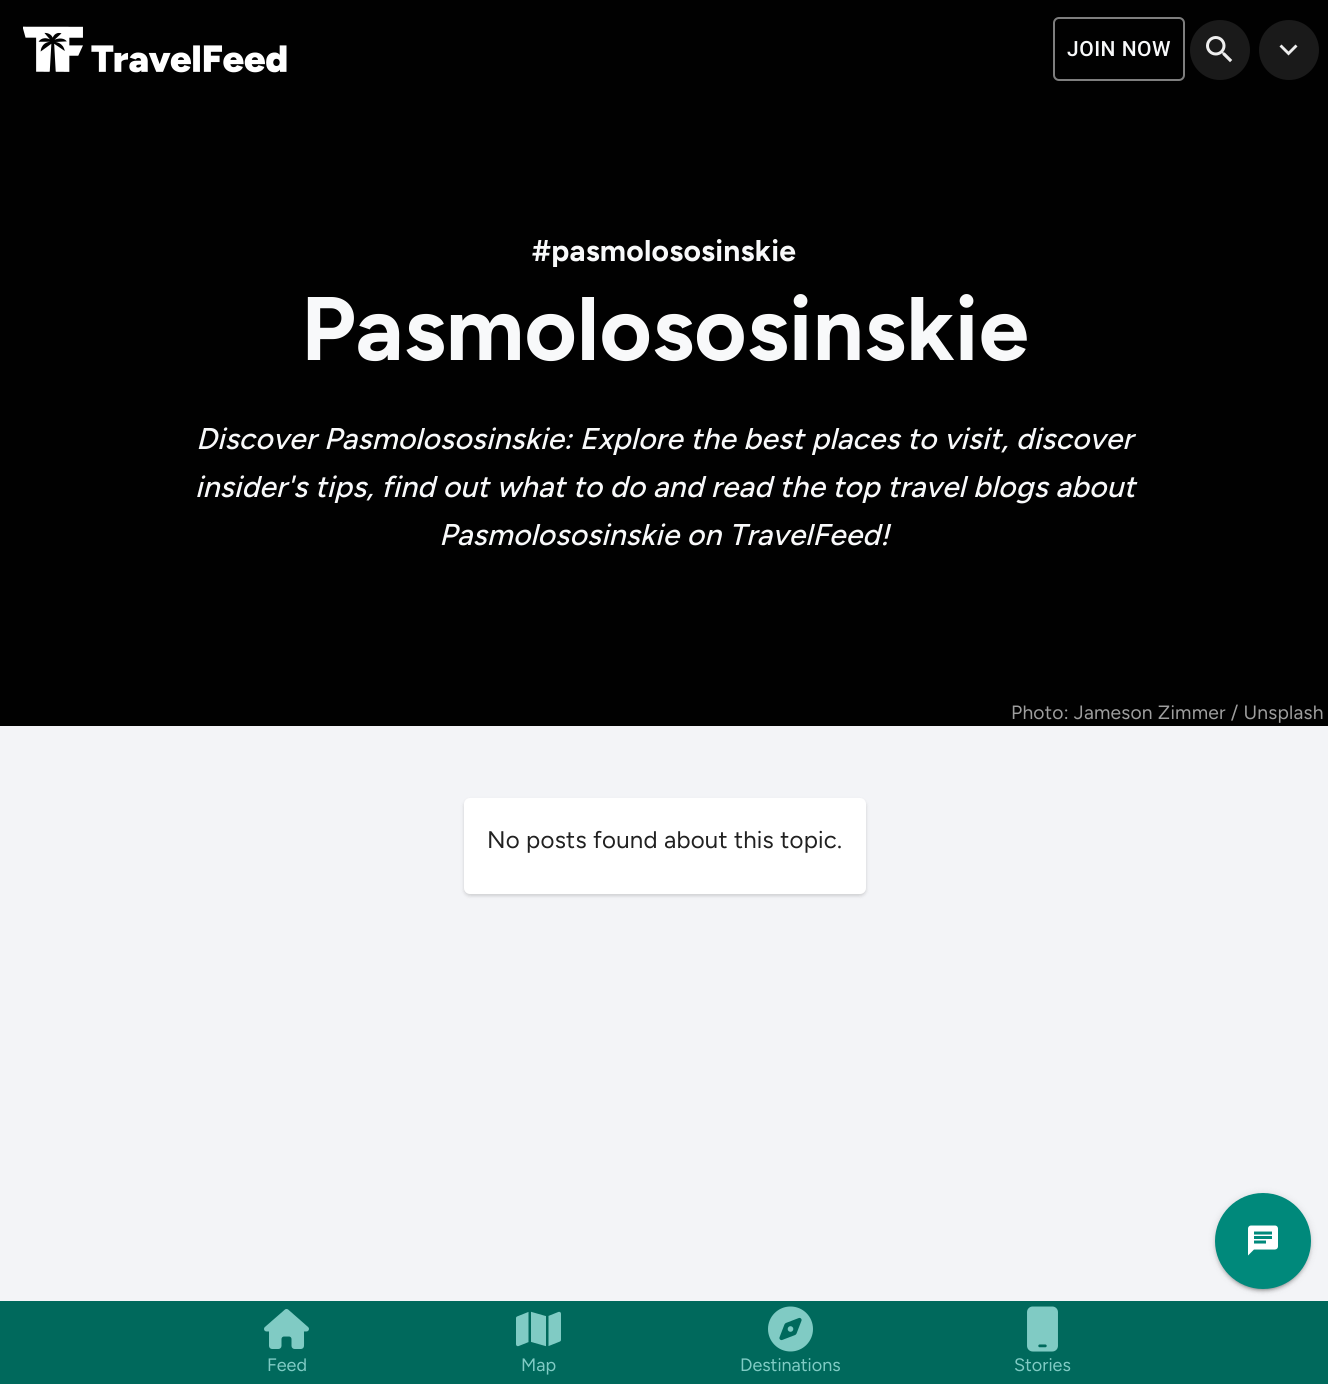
#include <cairo/cairo.h>
#include <math.h>
#include <stddef.h>

static cairo_t *cr;

static void use_color(int r, int g, int b) {
  cairo_set_source_rgb(cr, r / 255.0, g / 255.0, b / 255.0);
}

static void text(double x, double y, const char *s, const char *family, double size, int italic, int bold, int r, int g, int b) {
  cairo_select_font_face(cr, family, italic ? CAIRO_FONT_SLANT_ITALIC : CAIRO_FONT_SLANT_NORMAL,
    bold ? CAIRO_FONT_WEIGHT_BOLD : CAIRO_FONT_WEIGHT_NORMAL);
  cairo_set_font_size(cr, size);
  use_color(r, g, b);
  cairo_move_to(cr, x, y);
  cairo_show_text(cr, s);
}

static void spaced_text(double x, double y, const char *s, double letter, double word) {
  cairo_move_to(cr, x, y);
  while (*s) {
    char ch[5] = {0};
    int n = 0;
    do ch[n++] = *s++; while ((*s & 0xC0) == 0x80);
    cairo_show_text(cr, ch);
    cairo_rel_move_to(cr, letter + word * (*ch == ' '), 0);
  }
}

static void box(double x, double y, double w, double h, int r, int g, int b) {
  use_color(r, g, b);
  cairo_rectangle(cr, x, y, w, h);
  cairo_fill(cr);
}

static void round_rect(double x, double y, double w, double h, double r) {
  cairo_new_sub_path(cr);
  cairo_arc(cr, x + w - r, y + h - r, r, 0, M_PI / 2);
  cairo_arc(cr, x + r, y + h - r, r, M_PI / 2, M_PI);
  cairo_arc(cr, x + r, y + r, r, M_PI, 1.5 * M_PI);
  cairo_arc(cr, x + w - r, y + r, r, 1.5 * M_PI, 2 * M_PI);
  cairo_close_path(cr);
}

static void shadow(double x, double y, double w, double h, double r, double blur, double alpha) {
  cairo_push_group_with_content(cr, CAIRO_CONTENT_ALPHA);
  cairo_set_operator(cr, CAIRO_OPERATOR_SOURCE);
  for (int i = 15; i >= -15 && fmin(w, h) + blur * i / 3 > 0; i -= 2) {
    double e = blur * i / 6;
    cairo_set_source_rgba(cr, 0, 0, 0, alpha * erfc((i - 1) / 8.5) / 2);
    round_rect(x - e, y - e, w + 2 * e, h + 2 * e, fmax(0, fmin(r + e + blur * .6, fmin(w, h) / 2 + e)));
    cairo_fill(cr);
  }
  cairo_pattern_t *soft = cairo_pop_group(cr);
  cairo_mask(cr, soft);
  cairo_pattern_destroy(soft);
}

static void picture(const char *path, double x, double y, double w, double h) {
  cairo_surface_t *image = cairo_image_surface_create_from_png(path);
  cairo_save(cr);
  cairo_set_source_surface(cr, image, x, y);
  cairo_rectangle(cr, x, y, w, h);
  cairo_fill(cr);
  cairo_restore(cr);
  cairo_surface_destroy(image);
}

static void draw(void) {
  use_color(243, 244, 247);
  cairo_paint(cr);
  box(0, 0, 1328, 726, 1, 1, 1);
  picture("img_01.png", 23, 26, 264, 47);
  round_rect(1054, 18, 130, 62, 5);
  use_color(126, 126, 126);
  cairo_stroke(cr);
  use_color(26, 26, 26);
  cairo_arc(cr, 1220, 50, 30, 0, 2 * M_PI);
  cairo_fill(cr);
  picture("img_02.png", 1206, 36, 27, 27);
  cairo_arc(cr, 1289, 50, 30, 0, 2 * M_PI);
  cairo_fill(cr);
  use_color(238, 238, 238);
  cairo_new_path(cr);
  cairo_move_to(cr, 1281.5, 44.5);
  cairo_line_to(cr, 1288.5, 51.5);
  cairo_line_to(cr, 1295.5, 44.5);
  cairo_line_to(cr, 1297.5, 46.5);
  cairo_line_to(cr, 1288.5, 55.5);
  cairo_line_to(cr, 1279.5, 46.5);
  cairo_close_path(cr);
  cairo_fill(cr);
  use_color(0, 0, 0);
  shadow(464, 800, 402, 96, 6, 1.5, 0.06);
  shadow(464, 800, 402, 96, 6, 2, 0.1);
  use_color(255, 255, 255);
  round_rect(464, 798, 402, 96, 6);
  cairo_fill(cr);
  use_color(0, 0, 0);
  shadow(1215, 1194, 96, 96, 48, 4, 0.12);
  shadow(1215, 1196, 96, 96, 48, 1.5, 0.14);
  shadow(1218, 1200, 90, 90, 45, 1, 0.2);
  use_color(0, 137, 123);
  cairo_arc(cr, 1263, 1241, 48, 0, 2 * M_PI);
  cairo_fill(cr);
  picture("img_03.png", 1248, 1225, 30, 31);
  box(0, 1301, 1328, 83, 0, 105, 92);
  picture("img_04.png", 264, 1309, 45, 40);
  picture("img_05.png", 516, 1311, 45, 36);
  picture("img_06.png", 768, 1306, 45, 46);
  picture("img_07.png", 1027, 1306, 31, 46);
  cairo_select_font_face(cr, "Roboto Medium", CAIRO_FONT_SLANT_NORMAL, CAIRO_FONT_WEIGHT_NORMAL);
  cairo_set_font_size(cr, 21);
  use_color(248, 249, 250);
  spaced_text(1067, 56, "JOIN NOW", 0.5, 0);
  cairo_select_font_face(cr, "Figtree", CAIRO_FONT_SLANT_NORMAL, CAIRO_FONT_WEIGHT_BOLD);
  cairo_set_font_size(cr, 30);
  spaced_text(532, 261, "#pasmolososinskie", 0.23, 0);
  cairo_set_font_size(cr, 90);
  spaced_text(301, 360, "Pasmolososinskie", 0.23, 0);
  cairo_select_font_face(cr, "Figtree Medium", CAIRO_FONT_SLANT_ITALIC, CAIRO_FONT_WEIGHT_NORMAL);
  cairo_set_font_size(cr, 30);
  spaced_text(196, 449, "Discover Pasmolososinskie: Explore the best places to visit, discover", 0.23, 0);
  spaced_text(195, 497, "insider's tips, find out what to do and read the top travel blogs about", 0.23, 0);
  spaced_text(439, 545, "Pasmolososinskie on TravelFeed!", 0.23, 0);
  cairo_select_font_face(cr, "Figtree", CAIRO_FONT_SLANT_NORMAL, CAIRO_FONT_WEIGHT_NORMAL);
  cairo_set_font_size(cr, 19.25);
  use_color(158, 158, 158);
  spaced_text(1011, 719, "Photo: Jameson Zimmer / Unsplash", 0.23, 0);
  cairo_set_font_size(cr, 24);
  use_color(33, 33, 33);
  spaced_text(487, 848, "No posts found about this topic.", 0.23, 0);
  text(267, 1371, "Feed", "Figtree", 18, 0, 0, 128, 203, 196);
  text(521, 1371, "Map", "Figtree", 18, 0, 0, 128, 203, 196);
  text(740, 1371, "Destinations", "Figtree", 18, 0, 0, 128, 203, 196);
  text(1014, 1371, "Stories", "Figtree", 18, 0, 0, 128, 203, 196);
}

int main(void) {
  cairo_surface_t *surface = cairo_image_surface_create(CAIRO_FORMAT_RGB24, 1328, 1384);
  cr = cairo_create(surface);
  cairo_font_options_t *options = cairo_font_options_create();
  cairo_font_options_set_hint_metrics(options, CAIRO_HINT_METRICS_OFF);
  cairo_font_options_set_hint_style(options, CAIRO_HINT_STYLE_NONE);
  cairo_set_font_options(cr, options);
  cairo_set_miter_limit(cr, 4);
  draw();
  cairo_surface_write_to_png(surface, "out.png");
  cairo_font_options_destroy(options);
  cairo_destroy(cr);
  cairo_surface_destroy(surface);
  return 0;
}
